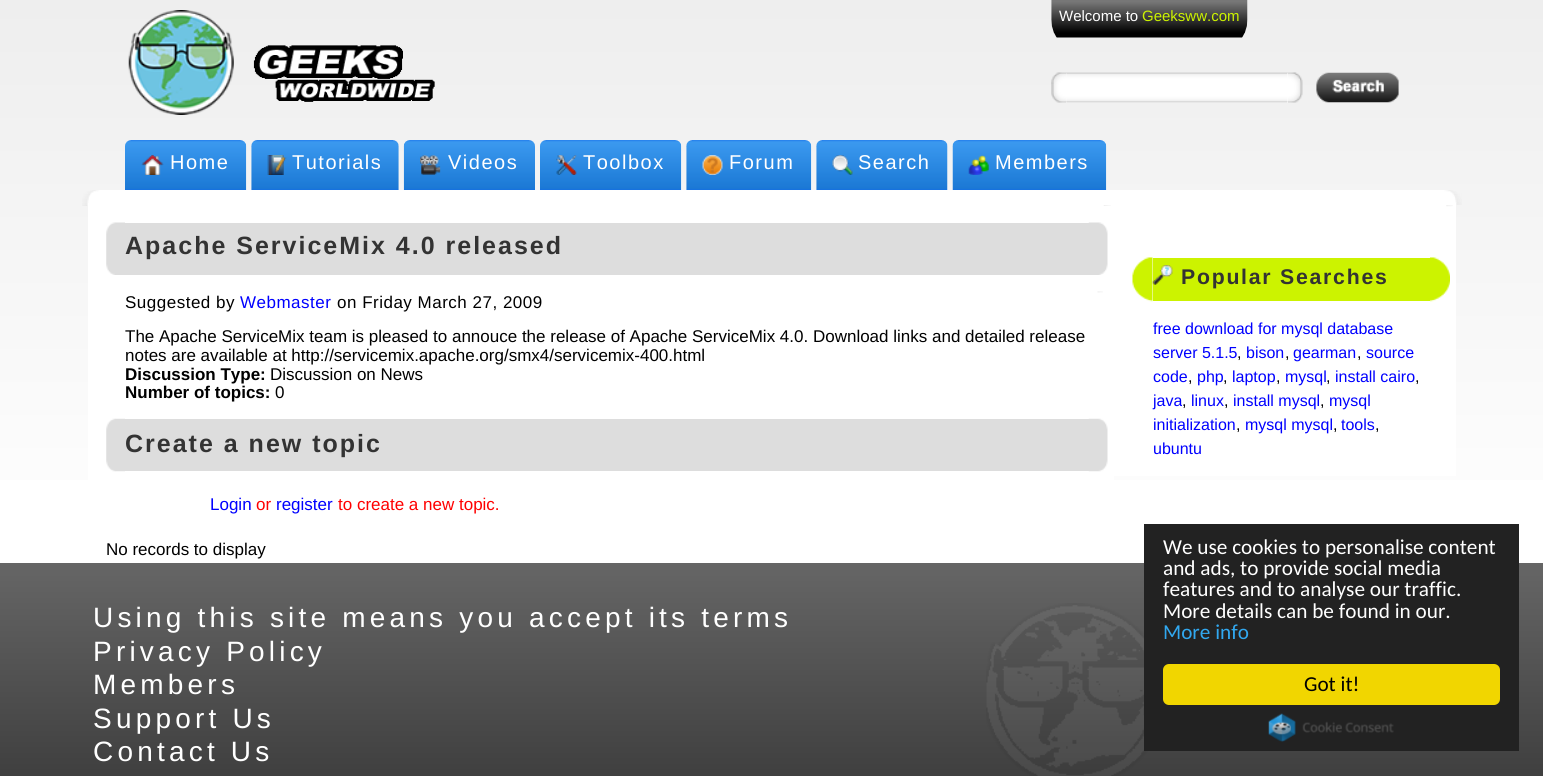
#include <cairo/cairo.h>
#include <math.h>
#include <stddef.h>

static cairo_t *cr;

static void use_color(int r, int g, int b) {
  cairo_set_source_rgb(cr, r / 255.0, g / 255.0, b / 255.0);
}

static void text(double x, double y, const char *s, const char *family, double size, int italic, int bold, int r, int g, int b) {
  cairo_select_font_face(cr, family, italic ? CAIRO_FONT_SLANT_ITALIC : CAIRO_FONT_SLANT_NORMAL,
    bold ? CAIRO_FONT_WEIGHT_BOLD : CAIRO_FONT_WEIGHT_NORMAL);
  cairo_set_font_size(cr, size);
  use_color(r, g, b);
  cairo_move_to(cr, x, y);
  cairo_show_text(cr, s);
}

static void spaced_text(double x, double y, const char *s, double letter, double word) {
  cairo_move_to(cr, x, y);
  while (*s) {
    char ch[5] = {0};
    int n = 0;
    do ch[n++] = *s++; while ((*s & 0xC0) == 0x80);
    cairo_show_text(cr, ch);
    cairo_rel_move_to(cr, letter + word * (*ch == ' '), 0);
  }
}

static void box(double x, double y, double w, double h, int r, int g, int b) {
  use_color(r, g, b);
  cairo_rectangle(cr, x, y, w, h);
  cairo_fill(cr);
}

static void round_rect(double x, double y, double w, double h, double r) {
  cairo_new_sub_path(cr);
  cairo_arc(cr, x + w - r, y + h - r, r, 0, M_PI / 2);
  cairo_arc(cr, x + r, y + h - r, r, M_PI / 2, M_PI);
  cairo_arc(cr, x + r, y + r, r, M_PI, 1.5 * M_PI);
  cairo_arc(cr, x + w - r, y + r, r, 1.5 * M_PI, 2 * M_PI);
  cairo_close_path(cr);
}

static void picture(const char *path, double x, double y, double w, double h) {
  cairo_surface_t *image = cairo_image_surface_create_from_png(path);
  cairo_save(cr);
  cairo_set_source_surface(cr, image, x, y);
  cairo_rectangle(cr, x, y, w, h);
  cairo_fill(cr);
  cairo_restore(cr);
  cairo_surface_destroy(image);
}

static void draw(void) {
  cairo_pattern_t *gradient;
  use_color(255, 255, 255);
  cairo_paint(cr);
  gradient = cairo_pattern_create_linear(772, 0, 772, 563);
  cairo_pattern_add_color_stop_rgba(gradient, 0, 0.933, 0.933, 0.933, 1);
  cairo_pattern_add_color_stop_rgba(gradient, 1, 1, 1, 1, 1);
  cairo_set_source(cr, gradient);
  cairo_pattern_destroy(gradient);
  cairo_rectangle(cr, 0, 0, 1543, 480);
  cairo_fill(cr);
  picture("img_01.png", 128, 10, 106, 105);
  picture("img_02.png", 253, 45, 182, 57);
  picture("img_03.png", 1051, 0, 197, 38);
  picture("img_04.png", 1051, 72, 16, 31);
  picture("img_05.png", 1287, 72, 16, 31);
  box(1066, 73, 222, 30, 255, 255, 255);
  picture("img_06.png", 1066, 72, 222, 31);
  picture("img_07.png", 1316, 72, 83, 31);
  picture("img_08.png", 125, 140, 122, 50);
  picture("img_09.png", 141, 155, 23, 20);
  picture("img_10.png", 251, 140, 148, 50);
  picture("img_11.png", 267, 155, 20, 20);
  picture("img_12.png", 403, 140, 132, 50);
  picture("img_13.png", 420, 155, 21, 20);
  picture("img_14.png", 540, 140, 142, 50);
  picture("img_15.png", 556, 155, 21, 20);
  picture("img_16.png", 686, 140, 126, 50);
  picture("img_17.png", 702, 155, 21, 20);
  picture("img_18.png", 816, 140, 132, 50);
  picture("img_19.png", 832, 155, 21, 20);
  picture("img_20.png", 952, 140, 155, 50);
  picture("img_21.png", 968, 155, 21, 20);
  picture("img_22.png", 82, 190, 18, 15);
  picture("img_23.png", 1444, 190, 18, 15);
  box(100, 190, 1344, 15, 255, 255, 255);
  picture("img_24.png", 82, 205, 6, 1);
  box(88, 205, 1026, 275, 255, 255, 255);
  picture("img_25.png", 1103, 205, 8, 1);
  picture("img_26.png", 106, 222, 19, 53);
  picture("img_27.png", 1088, 222, 20, 53);
  box(125, 223, 964, 52, 221, 221, 221);
  picture("img_28.png", 1097, 291, 6, 2);
  picture("img_29.png", 106, 418, 19, 54);
  picture("img_30.png", 1088, 418, 20, 54);
  box(125, 419, 964, 52, 221, 221, 221);
  box(1114, 205, 342, 271, 255, 255, 255);
  picture("img_31.png", 1446, 205, 7, 2);
  picture("img_32.png", 1132, 257, 21, 45);
  picture("img_33.png", 1430, 257, 20, 45);
  box(1153, 258, 277, 43, 204, 243, 0);
  picture("img_34.png", 1152, 265, 21, 20);
  gradient = cairo_pattern_create_linear(772, 562, 772, 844);
  cairo_pattern_add_color_stop_rgba(gradient, 0, 0.4, 0.4, 0.4, 1);
  cairo_pattern_add_color_stop_rgba(gradient, 1, 0.2, 0.2, 0.2, 1);
  cairo_set_source(cr, gradient);
  cairo_pattern_destroy(gradient);
  cairo_rectangle(cr, 0, 563, 1543, 213);
  cairo_fill(cr);
  picture("img_35.png", 986, 603, 162, 173);
  box(1144, 524, 375, 227, 34, 34, 34);
  use_color(241, 214, 0);
  round_rect(1163, 664, 337, 41, 6);
  cairo_fill(cr);
  picture("img_36.png", 1268, 713, 126, 29);
  text(1059, 21, "Welcome to", "Liberation Sans", 15, 0, 0, 255, 255, 255);
  text(1142, 21, "Geeksww.com", "Liberation Sans", 15, 0, 0, 204, 243, 0);
  cairo_set_font_size(cr, 20);
  use_color(255, 255, 255);
  spaced_text(170, 169, "Home", 1.5, 0);
  spaced_text(292, 169, "Tutorials", 1.5, 0);
  spaced_text(448, 169, "Videos", 1.5, 0);
  spaced_text(583, 169, "Toolbox", 1.5, 0);
  spaced_text(729, 169, "Forum", 1.5, 0);
  spaced_text(858, 169, "Search", 1.5, 0);
  spaced_text(995, 169, "Members", 1.5, 0);
  cairo_select_font_face(cr, "Liberation Sans", CAIRO_FONT_SLANT_NORMAL, CAIRO_FONT_WEIGHT_BOLD);
  cairo_set_font_size(cr, 25);
  use_color(51, 51, 51);
  spaced_text(125, 254, "Apache ServiceMix 4.0 released", 2, 0);
  cairo_select_font_face(cr, "Liberation Sans", CAIRO_FONT_SLANT_NORMAL, CAIRO_FONT_WEIGHT_NORMAL);
  cairo_set_font_size(cr, 17);
  use_color(0, 0, 0);
  spaced_text(125, 308, "Suggested by", 0.5, 0);
  use_color(0, 0, 255);
  spaced_text(240, 308, "Webmaster", 0.5, 0);
  use_color(0, 0, 0);
  spaced_text(337, 308, "on Friday March 27, 2009", 0.5, 0);
  text(125, 342, "The Apache ServiceMix team is pleased to annouce the release of Apache ServiceMix 4.0. Download links and detailed release", "Liberation Sans", 17, 0, 0, 0, 0, 0);
  text(125, 361, "notes are available at http://servicemix.apache.org/smx4/servicemix-400.html", "Liberation Sans", 17, 0, 0, 0, 0, 0);
  text(125, 380, "Discussion Type:", "Liberation Sans", 17, 0, 1, 0, 0, 0);
  text(270, 380, "Discussion on News", "Liberation Sans", 17, 0, 0, 0, 0, 0);
  text(125, 398, "Number of topics:", "Liberation Sans", 17, 0, 1, 0, 0, 0);
  text(275, 398, "0", "Liberation Sans", 17, 0, 0, 0, 0, 0);
  cairo_select_font_face(cr, "Liberation Sans", CAIRO_FONT_SLANT_NORMAL, CAIRO_FONT_WEIGHT_BOLD);
  cairo_set_font_size(cr, 25);
  use_color(51, 51, 51);
  spaced_text(125, 452, "Create a new topic", 2, 0);
  text(210, 510, "Login", "Liberation Sans", 17, 0, 0, 0, 0, 255);
  text(256, 510, "or", "Liberation Sans", 17, 0, 0, 255, 0, 0);
  text(276, 510, "register", "Liberation Sans", 17, 0, 0, 0, 0, 255);
  text(338, 510, "to create a new topic.", "Liberation Sans", 17, 0, 0, 255, 0, 0);
  text(106, 555, "No records to display", "Liberation Sans", 17, 0, 0, 0, 0, 0);
  cairo_select_font_face(cr, "Liberation Sans", CAIRO_FONT_SLANT_NORMAL, CAIRO_FONT_WEIGHT_BOLD);
  cairo_set_font_size(cr, 21.25);
  use_color(51, 51, 51);
  spaced_text(1181, 284, "Popular Searches", 1.75, 0);
  text(1153, 334, "free download for mysql database", "Liberation Sans", 16, 0, 0, 0, 0, 255);
  text(1153, 358, "server 5.1.5", "Liberation Sans", 16, 0, 0, 0, 0, 255);
  text(1237, 358, ",", "Liberation Sans", 16, 0, 0, 0, 0, 0);
  text(1246, 358, "bison", "Liberation Sans", 16, 0, 0, 0, 0, 255);
  text(1285, 358, ",", "Liberation Sans", 16, 0, 0, 0, 0, 0);
  text(1293, 358, "gearman", "Liberation Sans", 16, 0, 0, 0, 0, 255);
  text(1357, 358, ",", "Liberation Sans", 16, 0, 0, 0, 0, 0);
  text(1366, 358, "source", "Liberation Sans", 16, 0, 0, 0, 0, 255);
  text(1153, 382, "code", "Liberation Sans", 16, 0, 0, 0, 0, 255);
  text(1188, 382, ",", "Liberation Sans", 16, 0, 0, 0, 0, 0);
  text(1197, 382, "php", "Liberation Sans", 16, 0, 0, 0, 0, 255);
  text(1223, 382, ",", "Liberation Sans", 16, 0, 0, 0, 0, 0);
  text(1232, 382, "laptop", "Liberation Sans", 16, 0, 0, 0, 0, 255);
  text(1276, 382, ",", "Liberation Sans", 16, 0, 0, 0, 0, 0);
  text(1285, 382, "mysql", "Liberation Sans", 16, 0, 0, 0, 0, 255);
  text(1326, 382, ",", "Liberation Sans", 16, 0, 0, 0, 0, 0);
  text(1335, 382, "install cairo", "Liberation Sans", 16, 0, 0, 0, 0, 255);
  text(1415, 382, ",", "Liberation Sans", 16, 0, 0, 0, 0, 0);
  text(1153, 406, "java", "Liberation Sans", 16, 0, 0, 0, 0, 255);
  text(1182, 406, ",", "Liberation Sans", 16, 0, 0, 0, 0, 0);
  text(1191, 406, "linux", "Liberation Sans", 16, 0, 0, 0, 0, 255);
  text(1224, 406, ",", "Liberation Sans", 16, 0, 0, 0, 0, 0);
  text(1233, 406, "install mysql", "Liberation Sans", 16, 0, 0, 0, 0, 255);
  text(1320, 406, ",", "Liberation Sans", 16, 0, 0, 0, 0, 0);
  text(1329, 406, "mysql", "Liberation Sans", 16, 0, 0, 0, 0, 255);
  text(1153, 430, "initialization", "Liberation Sans", 16, 0, 0, 0, 0, 255);
  text(1236, 430, ",", "Liberation Sans", 16, 0, 0, 0, 0, 0);
  text(1245, 430, "mysql mysql", "Liberation Sans", 16, 0, 0, 0, 0, 255);
  text(1333, 430, ",", "Liberation Sans", 16, 0, 0, 0, 0, 0);
  text(1341, 430, "tools", "Liberation Sans", 16, 0, 0, 0, 0, 255);
  text(1375, 430, ",", "Liberation Sans", 16, 0, 0, 0, 0, 0);
  text(1153, 454, "ubuntu", "Liberation Sans", 16, 0, 0, 0, 0, 255);
  cairo_set_font_size(cr, 28);
  use_color(255, 255, 255);
  spaced_text(93, 627, "Using this site means you accept its terms", 4.2, 0);
  spaced_text(93, 661, "Privacy Policy", 4.2, 0);
  spaced_text(93, 694, "Members", 4.2, 0);
  spaced_text(93, 728, "Support Us", 4.2, 0);
  spaced_text(93, 761, "Contact Us", 4.2, 0);
  text(1163, 554, "We use cookies to personalise content", "Carlito", 21.25, 0, 0, 255, 255, 255);
  text(1163, 575, "and ads, to provide social media", "Carlito", 21.25, 0, 0, 255, 255, 255);
  text(1163, 596, "features and to analyse our traffic.", "Carlito", 21.25, 0, 0, 255, 255, 255);
  text(1163, 618, "More details can be found in our.", "Carlito", 21.25, 0, 0, 255, 255, 255);
  text(1163, 639, "More info", "Carlito", 21.25, 0, 0, 49, 168, 240);
  text(1304, 691, "Got it!", "Carlito", 21.25, 0, 0, 0, 0, 0);
}

int main(void) {
  cairo_surface_t *surface = cairo_image_surface_create(CAIRO_FORMAT_RGB24, 1543, 776);
  cr = cairo_create(surface);
  cairo_font_options_t *options = cairo_font_options_create();
  cairo_font_options_set_hint_metrics(options, CAIRO_HINT_METRICS_OFF);
  cairo_font_options_set_hint_style(options, CAIRO_HINT_STYLE_NONE);
  cairo_set_font_options(cr, options);
  cairo_set_miter_limit(cr, 4);
  draw();
  cairo_surface_write_to_png(surface, "out.png");
  cairo_font_options_destroy(options);
  cairo_destroy(cr);
  cairo_surface_destroy(surface);
  return 0;
}
